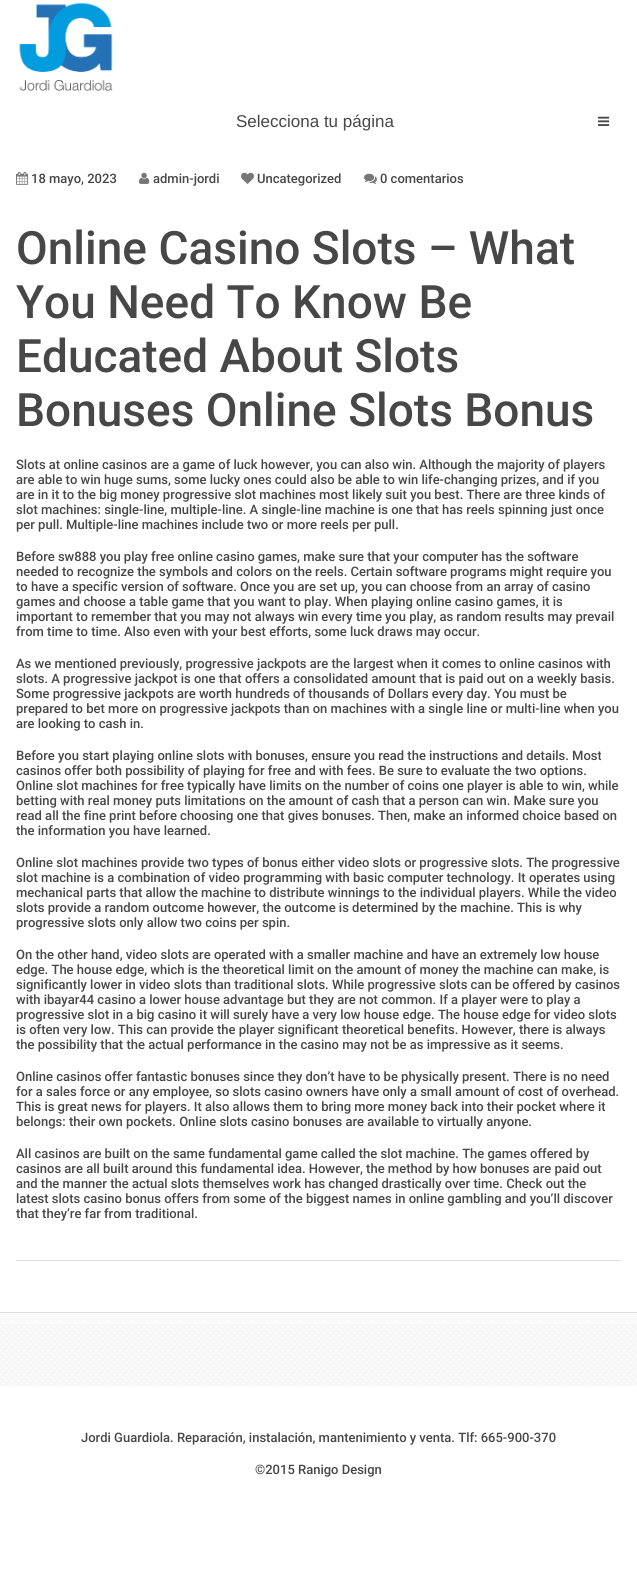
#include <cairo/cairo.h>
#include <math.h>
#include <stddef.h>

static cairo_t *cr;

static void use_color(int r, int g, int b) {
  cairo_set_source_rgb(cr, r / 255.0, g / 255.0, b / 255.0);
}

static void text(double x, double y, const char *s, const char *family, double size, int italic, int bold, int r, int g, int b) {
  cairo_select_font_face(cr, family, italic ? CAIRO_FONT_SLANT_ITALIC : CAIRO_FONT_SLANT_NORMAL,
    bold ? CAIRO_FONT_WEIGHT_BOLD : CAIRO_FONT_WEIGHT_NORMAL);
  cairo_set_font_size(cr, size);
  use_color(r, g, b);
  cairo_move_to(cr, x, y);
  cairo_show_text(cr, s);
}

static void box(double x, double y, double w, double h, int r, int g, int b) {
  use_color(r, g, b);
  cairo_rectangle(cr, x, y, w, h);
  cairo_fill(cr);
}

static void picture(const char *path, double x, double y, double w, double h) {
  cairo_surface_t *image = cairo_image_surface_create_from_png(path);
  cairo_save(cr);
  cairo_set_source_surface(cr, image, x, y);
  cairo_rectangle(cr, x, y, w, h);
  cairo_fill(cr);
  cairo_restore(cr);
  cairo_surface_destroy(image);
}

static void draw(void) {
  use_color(255, 255, 255);
  cairo_paint(cr);
  picture("img_01.png", 19, 2, 94, 89);
  picture("img_02.png", 598, 116, 12, 10);
  picture("img_03.png", 16, 171, 13, 14);
  picture("img_04.png", 139, 172, 11, 12);
  picture("img_05.png", 241, 172, 13, 12);
  picture("img_06.png", 364, 173, 13, 11);
  box(16, 1260, 605, 1, 221, 221, 221);
  box(0, 1312, 637, 1, 221, 221, 221);
  picture("img_07.png", 0, 1324, 637, 62);
  box(0, 1314, 637, 10, 250, 250, 250);
  text(236, 127, "Selecciona tu página", "Liberation Sans", 17, 0, 0, 71, 71, 71);
  text(31, 183, "18 mayo, 2023", "Roboto Medium", 13, 0, 0, 71, 71, 71);
  text(153, 183, "admin-jordi", "Roboto Medium", 13, 0, 0, 71, 71, 71);
  text(257, 183, "Uncategorized", "Roboto Medium", 13, 0, 0, 71, 71, 71);
  text(380, 183, "0 comentarios", "Roboto Medium", 13, 0, 0, 71, 71, 71);
  text(16, 264, "Online Casino Slots – What", "Roboto Medium", 46, 0, 0, 71, 71, 71);
  text(16, 318, "You Need To Know Be", "Roboto Medium", 46, 0, 0, 71, 71, 71);
  text(16, 372, "Educated About Slots", "Roboto Medium", 46, 0, 0, 71, 71, 71);
  text(16, 426, "Bonuses Online Slots Bonus", "Roboto Medium", 46, 0, 0, 71, 71, 71);
  text(16, 469, "Slots at online casinos are a game of luck however, you can also win. Although the majority of players", "Roboto Medium", 13, 0, 0, 71, 71, 71);
  text(16, 484, "are able to win huge sums, some lucky ones could also be able to win life-changing prizes, and if you", "Roboto Medium", 13, 0, 0, 71, 71, 71);
  text(16, 499, "are in it to the big money progressive slot machines most likely suit you best. There are three kinds of", "Roboto Medium", 13, 0, 0, 71, 71, 71);
  text(16, 514, "slot machines: single-line, multiple-line. A single-line machine is one that has reels spinning just once", "Roboto Medium", 13, 0, 0, 71, 71, 71);
  text(16, 529, "per pull. Multiple-line machines include two or more reels per pull.", "Roboto Medium", 13, 0, 0, 71, 71, 71);
  text(16, 561, "Before sw888 you play free online casino games, make sure that your computer has the software", "Roboto Medium", 13, 0, 0, 71, 71, 71);
  text(16, 576, "needed to recognize the symbols and colors on the reels. Certain software programs might require you", "Roboto Medium", 13, 0, 0, 71, 71, 71);
  text(16, 591, "to have a specific version of software. Once you are set up, you can choose from an array of casino", "Roboto Medium", 13, 0, 0, 71, 71, 71);
  text(16, 606, "games and choose a table game that you want to play. When playing online casino games, it is", "Roboto Medium", 13, 0, 0, 71, 71, 71);
  text(16, 621, "important to remember that you may not always win every time you play, as random results may prevail", "Roboto Medium", 13, 0, 0, 71, 71, 71);
  text(16, 636, "from time to time. Also even with your best efforts, some luck draws may occur.", "Roboto Medium", 13, 0, 0, 71, 71, 71);
  text(16, 668, "As we mentioned previously, progressive jackpots are the largest when it comes to online casinos with", "Roboto Medium", 13, 0, 0, 71, 71, 71);
  text(16, 683, "slots. A progressive jackpot is one that offers a consolidated amount that is paid out on a weekly basis.", "Roboto Medium", 13, 0, 0, 71, 71, 71);
  text(16, 698, "Some progressive jackpots are worth hundreds of thousands of Dollars every day. You must be", "Roboto Medium", 13, 0, 0, 71, 71, 71);
  text(16, 713, "prepared to bet more on progressive jackpots than on machines with a single line or multi-line when you", "Roboto Medium", 13, 0, 0, 71, 71, 71);
  text(16, 728, "are looking to cash in.", "Roboto Medium", 13, 0, 0, 71, 71, 71);
  text(16, 760, "Before you start playing online slots with bonuses, ensure you read the instructions and details. Most", "Roboto Medium", 13, 0, 0, 71, 71, 71);
  text(16, 775, "casinos offer both possibility of playing for free and with fees. Be sure to evaluate the two options.", "Roboto Medium", 13, 0, 0, 71, 71, 71);
  text(16, 790, "Online slot machines for free typically have limits on the number of coins one player is able to win, while", "Roboto Medium", 13, 0, 0, 71, 71, 71);
  text(16, 805, "betting with real money puts limitations on the amount of cash that a person can win. Make sure you", "Roboto Medium", 13, 0, 0, 71, 71, 71);
  text(16, 820, "read all the fine print before choosing one that gives bonuses. Then, make an informed choice based on", "Roboto Medium", 13, 0, 0, 71, 71, 71);
  text(16, 835, "the information you have learned.", "Roboto Medium", 13, 0, 0, 71, 71, 71);
  text(16, 867, "Online slot machines provide two types of bonus either video slots or progressive slots. The progressive", "Roboto Medium", 13, 0, 0, 71, 71, 71);
  text(16, 882, "slot machine is a combination of video programming with basic computer technology. It operates using", "Roboto Medium", 13, 0, 0, 71, 71, 71);
  text(16, 897, "mechanical parts that allow the machine to distribute winnings to the individual players. While the video", "Roboto Medium", 13, 0, 0, 71, 71, 71);
  text(16, 912, "slots provide a random outcome however, the outcome is determined by the machine. This is why", "Roboto Medium", 13, 0, 0, 71, 71, 71);
  text(16, 927, "progressive slots only allow two coins per spin.", "Roboto Medium", 13, 0, 0, 71, 71, 71);
  text(16, 959, "On the other hand, video slots are operated with a smaller machine and have an extremely low house", "Roboto Medium", 13, 0, 0, 71, 71, 71);
  text(16, 974, "edge. The house edge, which is the theoretical limit on the amount of money the machine can make, is", "Roboto Medium", 13, 0, 0, 71, 71, 71);
  text(16, 989, "significantly lower in video slots than traditional slots. While progressive slots can be offered by casinos", "Roboto Medium", 13, 0, 0, 71, 71, 71);
  text(16, 1004, "with ibayar44 casino a lower house advantage but they are not common. If a player were to play a", "Roboto Medium", 13, 0, 0, 71, 71, 71);
  text(16, 1019, "progressive slot in a big casino it will surely have a very low house edge. The house edge for video slots", "Roboto Medium", 13, 0, 0, 71, 71, 71);
  text(16, 1034, "is often very low. This can provide the player significant theoretical benefits. However, there is always", "Roboto Medium", 13, 0, 0, 71, 71, 71);
  text(16, 1049, "the possibility that the actual performance in the casino may not be as impressive as it seems.", "Roboto Medium", 13, 0, 0, 71, 71, 71);
  text(16, 1081, "Online casinos offer fantastic bonuses since they don’t have to be physically present. There is no need", "Roboto Medium", 13, 0, 0, 71, 71, 71);
  text(16, 1096, "for a sales force or any employee, so slots casino owners have only a small amount of cost of overhead.", "Roboto Medium", 13, 0, 0, 71, 71, 71);
  text(16, 1111, "This is great news for players. It also allows them to bring more money back into their pocket where it", "Roboto Medium", 13, 0, 0, 71, 71, 71);
  text(16, 1126, "belongs: their own pockets. Online slots casino bonuses are available to virtually anyone.", "Roboto Medium", 13, 0, 0, 71, 71, 71);
  text(16, 1158, "All casinos are built on the same fundamental game called the slot machine. The games offered by", "Roboto Medium", 13, 0, 0, 71, 71, 71);
  text(16, 1173, "casinos are all built around this fundamental idea. However, the method by how bonuses are paid out", "Roboto Medium", 13, 0, 0, 71, 71, 71);
  text(16, 1188, "and the manner the actual slots themselves work has changed drastically over time. Check out the", "Roboto Medium", 13, 0, 0, 71, 71, 71);
  text(16, 1203, "latest slots casino bonus offers from some of the biggest names in online gambling and you’ll discover", "Roboto Medium", 13, 0, 0, 71, 71, 71);
  text(16, 1218, "that they’re far from traditional.", "Roboto Medium", 13, 0, 0, 71, 71, 71);
  text(81, 1442, "Jordi Guardiola. Reparación, instalación, mantenimiento y venta. Tlf: 665-900-370", "Roboto Medium", 13, 0, 0, 71, 71, 71);
  text(255, 1474, "©2015 Ranigo Design", "Roboto Medium", 13, 0, 0, 71, 71, 71);
}

int main(void) {
  cairo_surface_t *surface = cairo_image_surface_create(CAIRO_FORMAT_RGB24, 637, 1594);
  cr = cairo_create(surface);
  cairo_font_options_t *options = cairo_font_options_create();
  cairo_font_options_set_hint_metrics(options, CAIRO_HINT_METRICS_OFF);
  cairo_font_options_set_hint_style(options, CAIRO_HINT_STYLE_NONE);
  cairo_set_font_options(cr, options);
  cairo_set_miter_limit(cr, 4);
  draw();
  cairo_surface_write_to_png(surface, "out.png");
  cairo_font_options_destroy(options);
  cairo_destroy(cr);
  cairo_surface_destroy(surface);
  return 0;
}
